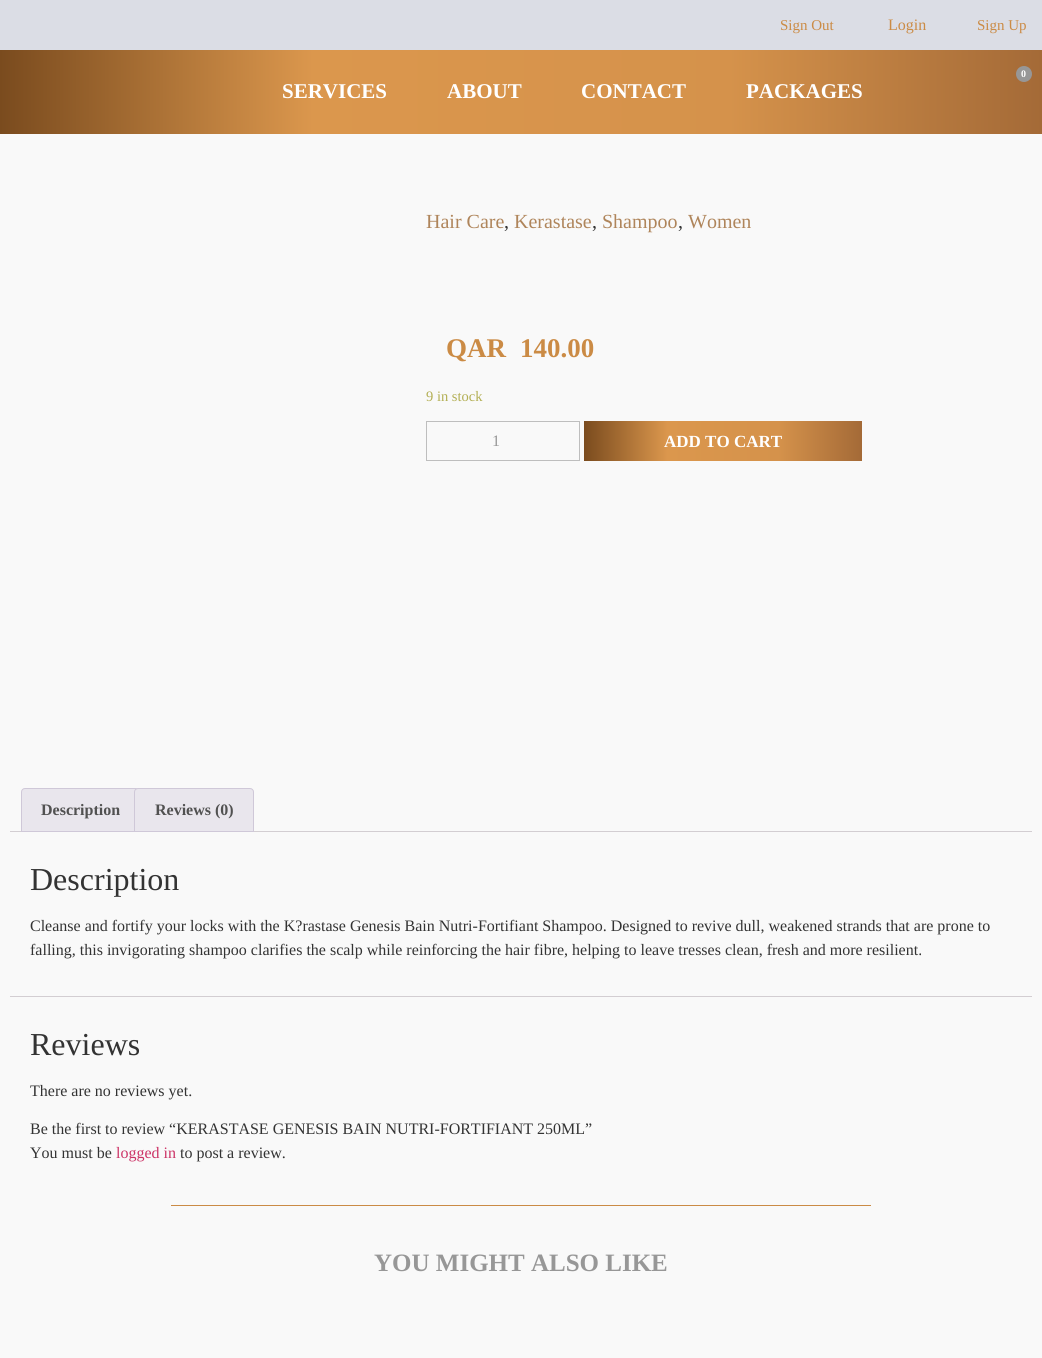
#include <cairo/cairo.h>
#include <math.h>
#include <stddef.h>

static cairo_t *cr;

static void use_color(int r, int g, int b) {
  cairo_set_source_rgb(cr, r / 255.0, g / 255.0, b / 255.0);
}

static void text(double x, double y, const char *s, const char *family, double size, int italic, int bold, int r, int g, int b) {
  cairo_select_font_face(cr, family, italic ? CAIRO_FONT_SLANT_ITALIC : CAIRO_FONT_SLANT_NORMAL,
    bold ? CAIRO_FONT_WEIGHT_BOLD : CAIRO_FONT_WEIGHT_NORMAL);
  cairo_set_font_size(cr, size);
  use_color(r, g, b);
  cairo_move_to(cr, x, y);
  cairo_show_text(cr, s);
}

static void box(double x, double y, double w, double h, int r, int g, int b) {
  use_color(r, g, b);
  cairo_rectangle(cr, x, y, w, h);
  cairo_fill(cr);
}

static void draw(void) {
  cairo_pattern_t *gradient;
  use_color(249, 249, 249);
  cairo_paint(cr);
  box(0, 0, 1042, 50, 219, 221, 229);
  gradient = cairo_pattern_create_linear(0, 92, 1042, 92);
  cairo_pattern_add_color_stop_rgba(gradient, 0, 0.478, 0.294, 0.118, 1);
  cairo_pattern_add_color_stop_rgba(gradient, 0.3, 0.859, 0.592, 0.302, 1);
  cairo_pattern_add_color_stop_rgba(gradient, 0.7, 0.835, 0.573, 0.294, 1);
  cairo_pattern_add_color_stop_rgba(gradient, 1, 0.643, 0.416, 0.216, 1);
  cairo_set_source(cr, gradient);
  cairo_pattern_destroy(gradient);
  cairo_rectangle(cr, 0, 50, 1042, 84);
  cairo_fill(cr);
  use_color(151, 151, 151);
  cairo_arc(cr, 1024, 74, 8, 0, 2 * M_PI);
  cairo_fill(cr);
  cairo_rectangle(cr, 426.5, 421.5, 153, 39);
  use_color(190, 190, 190);
  cairo_set_line_width(cr, 1);
  cairo_stroke(cr);
  gradient = cairo_pattern_create_linear(584, 441, 862, 441);
  cairo_pattern_add_color_stop_rgba(gradient, 0, 0.478, 0.294, 0.118, 1);
  cairo_pattern_add_color_stop_rgba(gradient, 0.3, 0.859, 0.592, 0.302, 1);
  cairo_pattern_add_color_stop_rgba(gradient, 0.7, 0.835, 0.573, 0.294, 1);
  cairo_pattern_add_color_stop_rgba(gradient, 1, 0.643, 0.416, 0.216, 1);
  cairo_set_source(cr, gradient);
  cairo_pattern_destroy(gradient);
  cairo_rectangle(cr, 584, 421, 278, 40);
  cairo_fill(cr);
  box(10, 831, 1022, 1, 211, 206, 210);
  use_color(233, 230, 237);
  cairo_new_path(cr);
  cairo_move_to(cr, 25, 788.5);
  cairo_line_to(cr, 136, 788.5);
  cairo_curve_to(cr, 138, 788.5, 139.5, 790, 139.5, 792);
  cairo_line_to(cr, 139.5, 831.5);
  cairo_line_to(cr, 21.5, 831.5);
  cairo_line_to(cr, 21.5, 792);
  cairo_curve_to(cr, 21.5, 790, 23, 788.5, 25, 788.5);
  cairo_close_path(cr);
  cairo_fill_preserve(cr);
  use_color(207, 200, 216);
  cairo_stroke(cr);
  use_color(233, 230, 237);
  cairo_new_path(cr);
  cairo_move_to(cr, 138, 788.5);
  cairo_line_to(cr, 250, 788.5);
  cairo_curve_to(cr, 252, 788.5, 253.5, 790, 253.5, 792);
  cairo_line_to(cr, 253.5, 831.5);
  cairo_line_to(cr, 134.5, 831.5);
  cairo_line_to(cr, 134.5, 792);
  cairo_curve_to(cr, 134.5, 790, 136, 788.5, 138, 788.5);
  cairo_close_path(cr);
  cairo_fill_preserve(cr);
  use_color(207, 200, 216);
  cairo_stroke(cr);
  box(10, 996, 1022, 1, 211, 206, 210);
  box(171, 1205, 700, 1, 203, 139, 69);
  text(780, 30, "Sign Out", "Liberation Serif", 15, 0, 0, 203, 139, 69);
  text(888, 30, "Login", "Liberation Serif", 16, 0, 0, 203, 139, 69);
  text(977, 30, "Sign Up", "Liberation Serif", 15, 0, 0, 203, 139, 69);
  text(1021, 77, "0", "Liberation Serif", 10, 0, 1, 255, 255, 255);
  text(282, 98, "SERVICES", "Liberation Serif", 21, 0, 1, 255, 255, 255);
  text(447, 98, "ABOUT", "Liberation Serif", 21, 0, 1, 255, 255, 255);
  text(581, 98, "CONTACT", "Liberation Serif", 21, 0, 1, 255, 255, 255);
  text(746, 98, "PACKAGES", "Liberation Serif", 21, 0, 1, 255, 255, 255);
  text(426, 228, "Hair Care", "Liberation Serif", 20, 0, 0, 175, 133, 91);
  text(504, 228, ",", "Liberation Serif", 20, 0, 0, 51, 51, 51);
  text(514, 228, "Kerastase", "Liberation Serif", 20, 0, 0, 175, 133, 91);
  text(592, 228, ",", "Liberation Serif", 20, 0, 0, 51, 51, 51);
  text(602, 228, "Shampoo", "Liberation Serif", 20, 0, 0, 175, 133, 91);
  text(678, 228, ",", "Liberation Serif", 20, 0, 0, 51, 51, 51);
  text(688, 228, "Women", "Liberation Serif", 20, 0, 0, 175, 133, 91);
  text(446, 357, "QAR", "Liberation Serif", 27, 0, 1, 203, 139, 69);
  text(520, 357, "140.00", "Liberation Serif", 27, 0, 1, 203, 139, 69);
  text(426, 401, "9 in stock", "Liberation Serif", 14.5, 0, 0, 179, 175, 84);
  text(492, 446, "1", "Liberation Serif", 16, 0, 0, 151, 151, 151);
  text(664, 447, "ADD TO CART", "Liberation Serif", 17, 0, 1, 255, 255, 255);
  text(41, 815, "Description", "Liberation Serif", 16, 0, 1, 81, 81, 81);
  text(155, 815, "Reviews (0)", "Liberation Serif", 16, 0, 1, 81, 81, 81);
  text(30, 890, "Description", "Liberation Serif", 32, 0, 0, 51, 51, 51);
  text(30, 931, "Cleanse and fortify your locks with the K?rastase Genesis Bain Nutri-Fortifiant Shampoo. Designed to revive dull, weakened strands that are prone to", "Liberation Serif", 16, 0, 0, 51, 51, 51);
  text(30, 955, "falling, this invigorating shampoo clarifies the scalp while reinforcing the hair fibre, helping to leave tresses clean, fresh and more resilient.", "Liberation Serif", 16, 0, 0, 51, 51, 51);
  text(30, 1055, "Reviews", "Liberation Serif", 32, 0, 0, 51, 51, 51);
  text(30, 1096, "There are no reviews yet.", "Liberation Serif", 16, 0, 0, 51, 51, 51);
  text(30, 1134, "Be the first to review “KERASTASE GENESIS BAIN NUTRI-FORTIFIANT 250ML”", "Liberation Serif", 16, 0, 0, 51, 51, 51);
  text(30, 1158, "You must be", "Liberation Serif", 16, 0, 0, 51, 51, 51);
  text(116, 1158, "logged in", "Liberation Serif", 16, 0, 0, 204, 51, 102);
  text(180, 1158, "to post a review.", "Liberation Serif", 16, 0, 0, 51, 51, 51);
  text(374, 1271, "YOU MIGHT ALSO LIKE", "Liberation Serif", 25, 0, 1, 151, 151, 151);
}

int main(void) {
  cairo_surface_t *surface = cairo_image_surface_create(CAIRO_FORMAT_RGB24, 1042, 1358);
  cr = cairo_create(surface);
  cairo_font_options_t *options = cairo_font_options_create();
  cairo_font_options_set_hint_metrics(options, CAIRO_HINT_METRICS_OFF);
  cairo_font_options_set_hint_style(options, CAIRO_HINT_STYLE_NONE);
  cairo_set_font_options(cr, options);
  cairo_set_miter_limit(cr, 4);
  draw();
  cairo_surface_write_to_png(surface, "out.png");
  cairo_font_options_destroy(options);
  cairo_destroy(cr);
  cairo_surface_destroy(surface);
  return 0;
}
